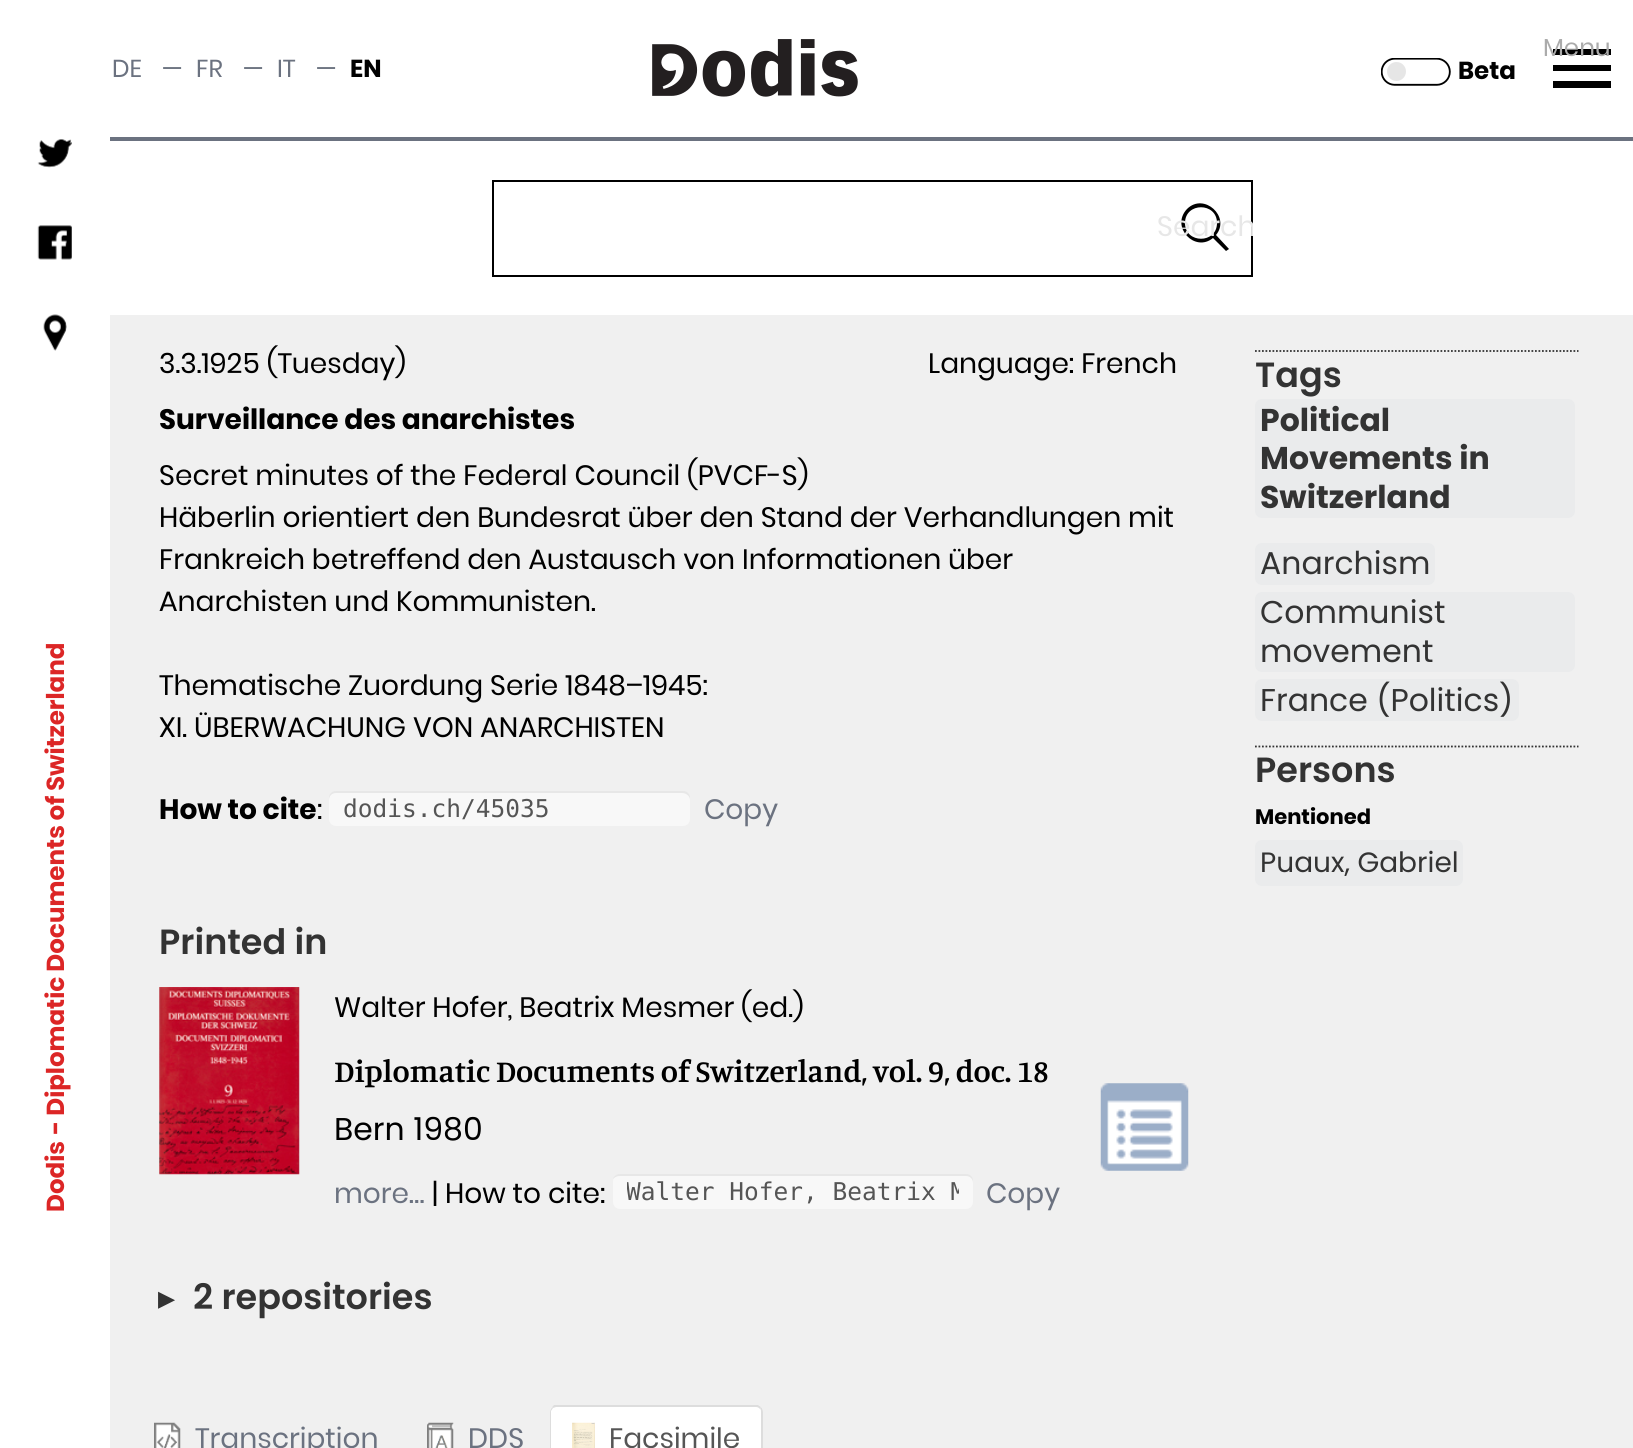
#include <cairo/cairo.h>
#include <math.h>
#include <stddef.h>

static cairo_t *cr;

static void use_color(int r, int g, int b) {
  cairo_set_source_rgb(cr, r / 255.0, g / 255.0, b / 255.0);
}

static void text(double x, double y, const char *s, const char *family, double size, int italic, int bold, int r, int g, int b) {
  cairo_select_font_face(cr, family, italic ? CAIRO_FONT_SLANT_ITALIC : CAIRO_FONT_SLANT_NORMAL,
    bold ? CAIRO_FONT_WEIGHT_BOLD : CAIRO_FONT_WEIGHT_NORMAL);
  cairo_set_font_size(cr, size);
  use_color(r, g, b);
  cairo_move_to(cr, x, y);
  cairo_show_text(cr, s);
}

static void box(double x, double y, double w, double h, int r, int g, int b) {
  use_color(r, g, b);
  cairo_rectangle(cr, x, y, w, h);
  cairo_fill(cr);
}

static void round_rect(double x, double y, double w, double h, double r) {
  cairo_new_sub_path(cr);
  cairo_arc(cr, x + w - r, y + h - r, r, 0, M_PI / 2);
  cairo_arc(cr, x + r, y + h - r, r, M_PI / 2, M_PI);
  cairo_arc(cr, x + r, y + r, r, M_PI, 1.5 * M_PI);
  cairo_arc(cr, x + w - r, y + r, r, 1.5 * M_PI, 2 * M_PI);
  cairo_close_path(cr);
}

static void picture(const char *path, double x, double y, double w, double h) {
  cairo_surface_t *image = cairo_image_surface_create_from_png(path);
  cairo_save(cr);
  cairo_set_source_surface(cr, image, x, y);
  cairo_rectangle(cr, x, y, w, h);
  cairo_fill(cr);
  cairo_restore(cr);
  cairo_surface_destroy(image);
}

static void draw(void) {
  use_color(255, 255, 255);
  cairo_paint(cr);
  box(110, 137, 1523, 4, 107, 114, 128);
  picture("img_01.png", 652, 39, 206, 58);
  use_color(0, 0, 0);
  cairo_new_path(cr);
  cairo_move_to(cr, 1611, 88);
  cairo_line_to(cr, 1553, 88);
  cairo_line_to(cr, 1553, 81);
  cairo_line_to(cr, 1611, 81);
  cairo_close_path(cr);
  cairo_move_to(cr, 1611, 71);
  cairo_line_to(cr, 1553, 71);
  cairo_line_to(cr, 1553, 65);
  cairo_line_to(cr, 1611, 65);
  cairo_close_path(cr);
  cairo_move_to(cr, 1611, 55);
  cairo_line_to(cr, 1553, 55);
  cairo_line_to(cr, 1553, 49);
  cairo_line_to(cr, 1611, 49);
  cairo_close_path(cr);
  cairo_fill(cr);
  picture("img_02.png", 1381, 58, 70, 28);
  picture("img_03.png", 37, 139, 35, 29);
  picture("img_04.png", 37, 225, 35, 35);
  picture("img_05.png", 43, 314, 24, 37);
  cairo_rectangle(cr, 493, 181, 759, 95);
  cairo_stroke(cr);
  cairo_new_path(cr);
  cairo_move_to(cr, 1229, 249);
  cairo_line_to(cr, 1216, 235);
  cairo_curve_to(cr, 1231, 217, 1204, 192, 1187, 209);
  cairo_curve_to(cr, 1170, 227, 1195, 253, 1213, 238);
  cairo_line_to(cr, 1226, 251);
  cairo_close_path(cr);
  cairo_move_to(cr, 1185, 223);
  cairo_curve_to(cr, 1185, 202, 1217, 202, 1217, 223);
  cairo_curve_to(cr, 1217, 244, 1185, 244, 1185, 223);
  cairo_close_path(cr);
  cairo_fill(cr);
  box(110, 315, 1523, 1133, 240, 240, 240);
  use_color(248, 248, 248);
  round_rect(329, 791, 361, 35, 7);
  cairo_fill(cr);
  cairo_set_source_rgba(cr, 0, 0, 0, 0.07);
  cairo_new_path(cr);
  cairo_move_to(cr, 336, 793);
  cairo_line_to(cr, 682, 793);
  cairo_curve_to(cr, 686, 793, 690, 796, 690, 800);
  cairo_line_to(cr, 690, 798);
  cairo_curve_to(cr, 690, 794, 687, 791, 683, 791);
  cairo_line_to(cr, 336, 791);
  cairo_curve_to(cr, 332, 791, 329, 794, 329, 798);
  cairo_line_to(cr, 329, 800);
  cairo_curve_to(cr, 329, 796, 332, 793, 336, 793);
  cairo_close_path(cr);
  cairo_fill(cr);
  picture("img_06.png", 159, 987, 141, 188);
  picture("img_07.png", 1100, 1083, 89, 88);
  use_color(248, 248, 248);
  round_rect(613, 1174, 360, 35, 7);
  cairo_fill(cr);
  cairo_set_source_rgba(cr, 0, 0, 0, 0.07);
  cairo_new_path(cr);
  cairo_move_to(cr, 620, 1176);
  cairo_line_to(cr, 966, 1176);
  cairo_curve_to(cr, 970, 1176, 973, 1179, 973, 1183);
  cairo_line_to(cr, 973, 1181);
  cairo_curve_to(cr, 973, 1177, 970, 1174, 966, 1174);
  cairo_line_to(cr, 620, 1174);
  cairo_curve_to(cr, 617, 1174, 614, 1176, 613, 1179);
  cairo_curve_to(cr, 615, 1177, 617, 1176, 620, 1176);
  cairo_close_path(cr);
  cairo_fill(cr);
  picture("img_08.png", 154, 1422, 27, 26);
  picture("img_09.png", 427, 1422, 27, 26);
  use_color(255, 255, 255);
  cairo_new_path(cr);
  cairo_move_to(cr, 557, 1405);
  cairo_line_to(cr, 756, 1405);
  cairo_curve_to(cr, 760, 1405, 763, 1408, 763, 1412);
  cairo_line_to(cr, 763, 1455);
  cairo_line_to(cr, 550, 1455);
  cairo_line_to(cr, 550, 1412);
  cairo_curve_to(cr, 550, 1408, 553, 1405, 557, 1405);
  cairo_close_path(cr);
  cairo_fill(cr);
  use_color(221, 221, 221);
  cairo_new_path(cr);
  cairo_move_to(cr, 556, 1407);
  cairo_line_to(cr, 553, 1408);
  cairo_line_to(cr, 552, 1407);
  cairo_line_to(cr, 554, 1405);
  cairo_line_to(cr, 758, 1405);
  cairo_line_to(cr, 761, 1407);
  cairo_line_to(cr, 760, 1409);
  cairo_curve_to(cr, 759, 1408, 758, 1407, 756, 1407);
  cairo_close_path(cr);
  cairo_fill(cr);
  cairo_new_path(cr);
  cairo_move_to(cr, 763, 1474);
  cairo_line_to(cr, 763, 1412);
  cairo_curve_to(cr, 763, 1410, 762, 1408, 761, 1407);
  cairo_line_to(cr, 760, 1409);
  cairo_curve_to(cr, 761, 1409, 761, 1411, 761, 1412);
  cairo_line_to(cr, 761, 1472);
  cairo_close_path(cr);
  cairo_fill(cr);
  cairo_new_path(cr);
  cairo_move_to(cr, 550, 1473);
  cairo_line_to(cr, 550, 1412);
  cairo_curve_to(cr, 550, 1410, 551, 1409, 552, 1407);
  cairo_line_to(cr, 553, 1408);
  cairo_line_to(cr, 551, 1411);
  cairo_line_to(cr, 551, 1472);
  cairo_close_path(cr);
  cairo_fill(cr);
  picture("img_10.png", 572, 1422, 23, 26);
  cairo_new_path(cr);
  cairo_move_to(cr, 1255, 351);
  cairo_line_to(cr, 1578.5, 351);
  use_color(51, 51, 51);
  cairo_set_line_width(cr, 1.8);
  cairo_set_dash(cr, (double[]){1.75, 1.75}, 2, 0);
  cairo_stroke(cr);
  use_color(234, 235, 236);
  round_rect(1255, 399, 320, 119, 7);
  cairo_fill(cr);
  round_rect(1255, 543, 180, 42, 7);
  cairo_fill(cr);
  round_rect(1255, 592, 320, 80, 7);
  cairo_fill(cr);
  round_rect(1255, 679, 264, 42, 7);
  cairo_fill(cr);
  cairo_new_path(cr);
  cairo_move_to(cr, 1255, 746.5);
  cairo_line_to(cr, 1578.5, 746.5);
  use_color(51, 51, 51);
  cairo_stroke(cr);
  use_color(234, 235, 236);
  round_rect(1255, 840, 208, 46, 7);
  cairo_fill(cr);
  text(112, 77, "DE", "Poppins", 24.5, 0, 0, 107, 114, 128);
  text(162, 77, "—", "Poppins", 24.5, 0, 0, 107, 114, 128);
  text(196, 77, "FR", "Poppins", 24.5, 0, 0, 107, 114, 128);
  text(243, 77, "—", "Poppins", 24.5, 0, 0, 107, 114, 128);
  text(277, 77, "IT", "Poppins", 24.5, 0, 0, 107, 114, 128);
  text(316, 77, "—", "Poppins", 24.5, 0, 0, 107, 114, 128);
  text(350, 77, "EN", "Poppins", 24.5, 0, 1, 0, 0, 0);
  text(1543, 56, "Menu", "Poppins", 24.5, 0, 0, 171, 171, 171);
  text(1458, 79, "Beta", "Poppins", 24.5, 0, 1, 0, 0, 0);
  cairo_save(cr);
  cairo_translate(cr, 64, 1134);
  cairo_rotate(cr, -90 * M_PI / 180);
  text(0, 0, "- Diplomatic Documents of Switzerland", "Poppins", 24.5, 0, 1, 220, 38, 38);
  cairo_restore(cr);
  cairo_save(cr);
  cairo_translate(cr, 64, 1212);
  cairo_rotate(cr, -90 * M_PI / 180);
  text(0, 0, "Dodis", "Poppins", 24.5, 0, 1, 220, 38, 38);
  cairo_restore(cr);
  cairo_save(cr);
  cairo_rectangle(cr, 1157, 180, 96, 97);
  cairo_clip(cr);
  text(1157, 236, "Search", "Poppins", 28, 0, 0, 231, 231, 231);
  cairo_restore(cr);
  text(159, 373, "3.3.1925 (Tuesday)", "Poppins", 28, 0, 0, 0, 0, 0);
  text(928, 373, "Language: French", "Poppins", 28, 0, 0, 0, 0, 0);
  text(159, 429, "Surveillance des anarchistes", "Poppins", 28, 0, 1, 0, 0, 0);
  text(159, 485, "Secret minutes of the Federal Council (PVCF-S)", "Poppins", 28, 0, 0, 0, 0, 0);
  text(159, 527, "Häberlin orientiert den Bundesrat über den Stand der Verhandlungen mit", "Poppins", 28, 0, 0, 0, 0, 0);
  text(159, 569, "Frankreich betreffend den Austausch von Informationen über", "Poppins", 28, 0, 0, 0, 0, 0);
  text(159, 611, "Anarchisten und Kommunisten.", "Poppins", 28, 0, 0, 0, 0, 0);
  text(159, 695, "Thematische Zuordung Serie 1848–1945:", "Poppins", 28, 0, 0, 0, 0, 0);
  text(159, 737, "XI. ÜBERWACHUNG VON ANARCHISTEN", "Poppins", 28, 0, 0, 0, 0, 0);
  text(159, 819, "How to cite", "Poppins", 28, 0, 1, 0, 0, 0);
  text(317, 819, ":", "Poppins", 28, 0, 0, 0, 0, 0);
  text(343, 817, "dodis.ch/45035", "DejaVu Sans Mono", 24.5, 0, 0, 85, 85, 85);
  text(704, 819, "Copy", "Poppins", 28, 0, 0, 107, 114, 128);
  text(159, 954, "Printed in", "Poppins SemiBold", 35, 0, 0, 51, 51, 51);
  text(334, 1017, "Walter Hofer, Beatrix Mesmer (ed.)", "Poppins", 28, 0, 0, 0, 0, 0);
  text(334, 1082, "Diplomatic Documents of Switzerland, vol. 9, doc. 18", "Manuale SemiBold", 31.5, 0, 0, 0, 0, 0);
  text(334, 1140, "Bern 1980", "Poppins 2", 31.5, 0, 0, 0, 0, 0);
  text(334, 1203, "more…", "Poppins", 28, 0, 0, 107, 114, 128);
  text(432, 1203, "| How to cite:", "Poppins", 28, 0, 0, 0, 0, 0);
  cairo_save(cr);
  cairo_rectangle(cr, 627, 1174, 332, 35);
  cairo_clip(cr);
  text(626, 1200, "Walter Hofer, Beatrix M", "DejaVu Sans Mono", 24.5, 0, 0, 85, 85, 85);
  cairo_restore(cr);
  text(986, 1203, "Copy", "Poppins", 28, 0, 0, 107, 114, 128);
  text(158, 1306, "▶", "DejaVu Sans", 21, 0, 1, 51, 51, 51);
  text(193, 1309, "2 repositories", "Poppins SemiBold", 35, 0, 0, 51, 51, 51);
  text(195, 1448, "Transcription", "Poppins", 28, 0, 0, 107, 114, 128);
  text(468, 1448, "DDS", "Poppins", 28, 0, 0, 107, 114, 128);
  text(609, 1448, "Facsimile", "Poppins", 28, 0, 0, 85, 85, 85);
  text(1255, 387, "Tags", "Poppins SemiBold", 35, 0, 0, 51, 51, 51);
  text(1260, 431, "Political", "Poppins 2", 31.5, 0, 1, 51, 51, 51);
  text(1260, 469, "Movements in", "Poppins 2", 31.5, 0, 1, 51, 51, 51);
  text(1260, 508, "Switzerland", "Poppins 2", 31.5, 0, 1, 51, 51, 51);
  text(1260, 574, "Anarchism", "Poppins 2", 31.5, 0, 0, 51, 51, 51);
  text(1260, 623, "Communist", "Poppins 2", 31.5, 0, 0, 51, 51, 51);
  text(1260, 662, "movement", "Poppins 2", 31.5, 0, 0, 51, 51, 51);
  text(1260, 711, "France (Politics)", "Poppins 2", 31.5, 0, 0, 51, 51, 51);
  text(1255, 782, "Persons", "Poppins SemiBold", 35, 0, 0, 51, 51, 51);
  text(1255, 824, "Mentioned", "Poppins", 21, 0, 1, 0, 0, 0);
  text(1260, 872, "Puaux, Gabriel", "Poppins 2", 28, 0, 0, 51, 51, 51);
}

int main(void) {
  cairo_surface_t *surface = cairo_image_surface_create(CAIRO_FORMAT_RGB24, 1633, 1448);
  cr = cairo_create(surface);
  cairo_font_options_t *options = cairo_font_options_create();
  cairo_font_options_set_hint_metrics(options, CAIRO_HINT_METRICS_OFF);
  cairo_font_options_set_hint_style(options, CAIRO_HINT_STYLE_NONE);
  cairo_set_font_options(cr, options);
  cairo_set_miter_limit(cr, 4);
  draw();
  cairo_surface_write_to_png(surface, "out.png");
  cairo_font_options_destroy(options);
  cairo_destroy(cr);
  cairo_surface_destroy(surface);
  return 0;
}
